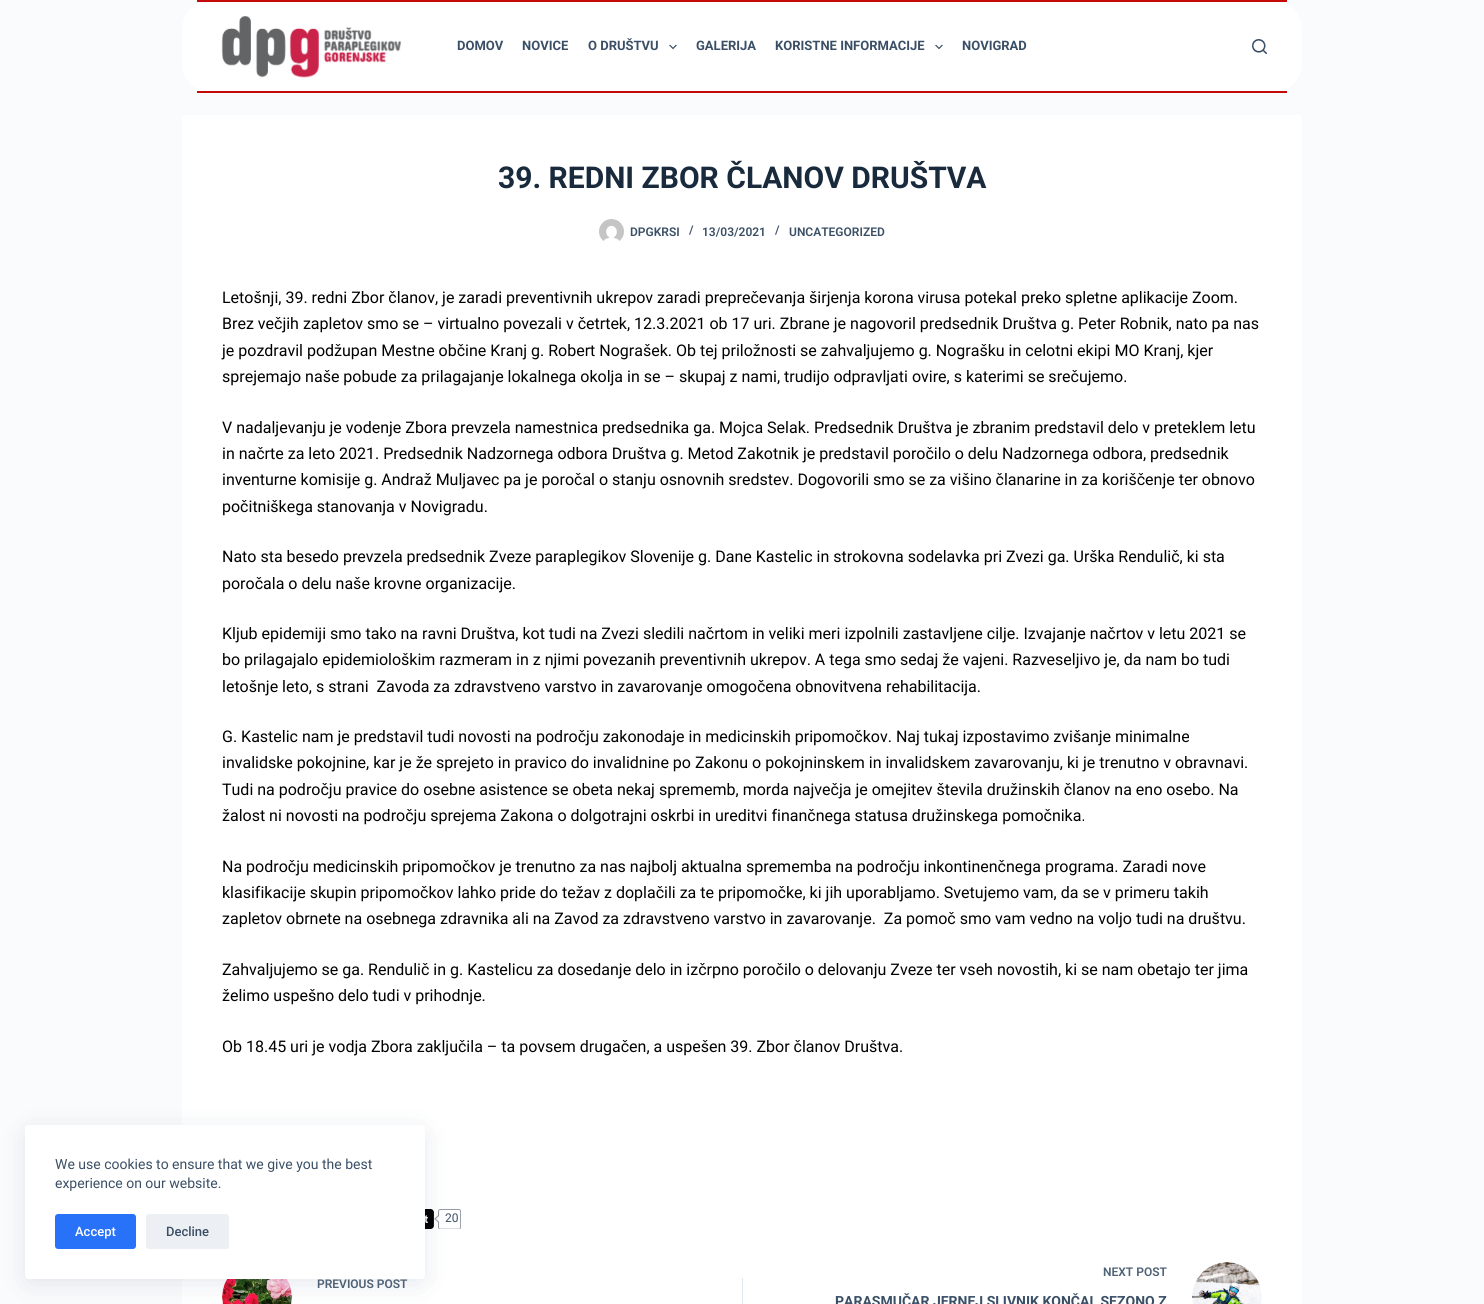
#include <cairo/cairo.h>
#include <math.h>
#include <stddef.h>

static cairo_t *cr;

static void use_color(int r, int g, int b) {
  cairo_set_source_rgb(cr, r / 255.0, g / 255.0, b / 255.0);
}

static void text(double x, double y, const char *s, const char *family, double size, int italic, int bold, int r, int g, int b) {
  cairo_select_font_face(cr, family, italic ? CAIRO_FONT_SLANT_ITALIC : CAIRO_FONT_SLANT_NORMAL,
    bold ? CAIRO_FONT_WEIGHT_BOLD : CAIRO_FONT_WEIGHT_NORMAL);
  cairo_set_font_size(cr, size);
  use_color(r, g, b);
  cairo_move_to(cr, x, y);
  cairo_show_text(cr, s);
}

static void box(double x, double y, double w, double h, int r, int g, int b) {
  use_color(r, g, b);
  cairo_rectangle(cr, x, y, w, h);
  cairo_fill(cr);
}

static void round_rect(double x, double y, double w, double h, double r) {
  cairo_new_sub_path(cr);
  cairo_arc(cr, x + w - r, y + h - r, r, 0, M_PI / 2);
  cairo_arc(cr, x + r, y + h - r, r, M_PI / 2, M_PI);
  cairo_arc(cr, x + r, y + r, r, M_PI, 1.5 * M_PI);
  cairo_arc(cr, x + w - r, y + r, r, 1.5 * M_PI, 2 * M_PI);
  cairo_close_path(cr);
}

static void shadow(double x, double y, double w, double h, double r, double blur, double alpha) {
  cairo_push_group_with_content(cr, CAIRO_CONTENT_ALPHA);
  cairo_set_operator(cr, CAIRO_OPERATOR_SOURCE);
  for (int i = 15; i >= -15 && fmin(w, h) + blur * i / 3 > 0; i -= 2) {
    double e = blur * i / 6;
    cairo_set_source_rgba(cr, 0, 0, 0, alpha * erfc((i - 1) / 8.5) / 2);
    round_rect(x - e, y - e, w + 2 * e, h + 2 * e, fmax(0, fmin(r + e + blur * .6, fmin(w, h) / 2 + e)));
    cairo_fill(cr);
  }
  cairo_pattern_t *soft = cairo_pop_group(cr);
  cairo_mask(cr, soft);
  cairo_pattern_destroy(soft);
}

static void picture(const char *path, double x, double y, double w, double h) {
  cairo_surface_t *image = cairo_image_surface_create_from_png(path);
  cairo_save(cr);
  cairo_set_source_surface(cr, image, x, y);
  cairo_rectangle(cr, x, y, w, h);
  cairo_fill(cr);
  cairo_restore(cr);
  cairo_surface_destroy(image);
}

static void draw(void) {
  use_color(250, 251, 252);
  cairo_paint(cr);
  use_color(255, 255, 255);
  round_rect(182, 115, 1120, 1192, 3);
  cairo_fill(cr);
  picture("img_05.png", 425, 1209, 9, 20);
  picture("img_06.png", 434, 1209, 27, 20);
  picture("img_07.png", 222, 1279, 70, 25);
  use_color(34, 56, 101);
  shadow(30, 1135, 390, 144, 0, 15, 0.15);
  use_color(255, 255, 255);
  round_rect(25, 1125, 400, 154, 3);
  cairo_fill(cr);
  use_color(40, 114, 250);
  round_rect(55, 1214, 81, 35, 3);
  cairo_fill(cr);
  use_color(236, 239, 243);
  round_rect(146, 1214, 83, 35, 3);
  cairo_fill(cr);
  use_color(255, 255, 255);
  round_rect(182, 0, 1120, 93, 30);
  cairo_fill(cr);
  box(197, 0, 1090, 2, 197, 8, 8);
  box(197, 91, 1090, 2, 197, 8, 8);
  picture("img_01.png", 221, 16, 181, 62);
  picture("img_02.png", 669, 44, 8, 6);
  picture("img_02.png", 935, 44, 8, 6);
  picture("img_03.png", 1252, 39, 15, 15);
  picture("img_04.png", 599, 219, 25, 22);
  box(742, 1278, 1, 26, 225, 232, 237);
  picture("img_08.png", 1192, 1262, 70, 42);
  text(55, 1169, "We use cookies to ensure that we give you the best", "Roboto", 14, 0, 0, 58, 79, 102);
  text(55, 1188, "experience on our website.", "Roboto", 14, 0, 0, 58, 79, 102);
  text(75, 1236, "Accept", "Roboto Medium", 13, 0, 0, 255, 255, 255);
  text(166, 1236, "Decline", "Roboto Medium", 13, 0, 0, 58, 79, 102);
  text(457, 50, "DOMOV", "Roboto", 13, 0, 1, 58, 79, 102);
  text(522, 50, "NOVICE", "Roboto", 13, 0, 1, 58, 79, 102);
  text(588, 50, "O DRUŠTVU", "Roboto", 13, 0, 1, 58, 79, 102);
  text(696, 50, "GALERIJA", "Roboto", 13, 0, 1, 58, 79, 102);
  text(775, 50, "KORISTNE INFORMACIJE", "Roboto", 13, 0, 1, 58, 79, 102);
  text(962, 50, "NOVIGRAD", "Roboto", 13, 0, 1, 58, 79, 102);
  text(498, 188, "39. REDNI ZBOR ČLANOV DRUŠTVA", "Roboto", 30, 0, 1, 25, 42, 61);
  text(630, 236, "DPGKRSI", "Roboto SemiBold", 12, 0, 0, 58, 79, 102);
  text(689, 234, "/", "Roboto SemiBold", 12, 0, 0, 58, 79, 102);
  text(702, 236, "13/03/2021", "Roboto SemiBold", 12, 0, 0, 58, 79, 102);
  text(775, 234, "/", "Roboto SemiBold", 12, 0, 0, 58, 79, 102);
  text(789, 236, "UNCATEGORIZED", "Roboto SemiBold", 12, 0, 0, 58, 79, 102);
  text(222, 303, "Letošnji, 39. redni Zbor članov, je zaradi preventivnih ukrepov zaradi preprečevanja širjenja korona virusa potekal preko spletne aplikacije Zoom.", "Roboto", 16, 0, 0, 0, 0, 0);
  text(222, 329, "Brez večjih zapletov smo se – virtualno povezali v četrtek, 12.3.2021 ob 17 uri. Zbrane je nagovoril predsednik Društva g. Peter Robnik, nato pa nas", "Roboto", 16, 0, 0, 0, 0, 0);
  text(222, 356, "je pozdravil podžupan Mestne občine Kranj g. Robert Nograšek. Ob tej priložnosti se zahvaljujemo g. Nograšku in celotni ekipi MO Kranj, kjer", "Roboto", 16, 0, 0, 0, 0, 0);
  text(222, 382, "sprejemajo naše pobude za prilagajanje lokalnega okolja in se – skupaj z nami, trudijo odpravljati ovire, s katerimi se srečujemo.", "Roboto", 16, 0, 0, 0, 0, 0);
  text(222, 433, "V nadaljevanju je vodenje Zbora prevzela namestnica predsednika ga. Mojca Selak. Predsednik Društva je zbranim predstavil delo v preteklem letu", "Roboto", 16, 0, 0, 0, 0, 0);
  text(222, 459, "in načrte za leto 2021. Predsednik Nadzornega odbora Društva g. Metod Zakotnik je predstavil poročilo o delu Nadzornega odbora, predsednik", "Roboto", 16, 0, 0, 0, 0, 0);
  text(222, 485, "inventurne komisije g. Andraž Muljavec pa je poročal o stanju osnovnih sredstev. Dogovorili smo se za višino članarine in za koriščenje ter obnovo", "Roboto", 16, 0, 0, 0, 0, 0);
  text(222, 512, "počitniškega stanovanja v Novigradu.", "Roboto", 16, 0, 0, 0, 0, 0);
  text(222, 562, "Nato sta besedo prevzela predsednik Zveze paraplegikov Slovenije g. Dane Kastelic in strokovna sodelavka pri Zvezi ga. Urška Rendulič, ki sta", "Roboto", 16, 0, 0, 0, 0, 0);
  text(222, 589, "poročala o delu naše krovne organizacije.", "Roboto", 16, 0, 0, 0, 0, 0);
  text(222, 639, "Kljub epidemiji smo tako na ravni Društva, kot tudi na Zvezi sledili načrtom in veliki meri izpolnili zastavljene cilje. Izvajanje načrtov v letu 2021 se", "Roboto", 16, 0, 0, 0, 0, 0);
  text(222, 665, "bo prilagajalo epidemiološkim razmeram in z njimi povezanih preventivnih ukrepov. A tega smo sedaj že vajeni. Razveseljivo je, da nam bo tudi", "Roboto", 16, 0, 0, 0, 0, 0);
  text(222, 692, "letošnje leto, s strani  Zavoda za zdravstveno varstvo in zavarovanje omogočena obnovitvena rehabilitacija.", "Roboto", 16, 0, 0, 0, 0, 0);
  text(222, 742, "G. Kastelic nam je predstavil tudi novosti na področju zakonodaje in medicinskih pripomočkov. Naj tukaj izpostavimo zvišanje minimalne", "Roboto", 16, 0, 0, 0, 0, 0);
  text(222, 768, "invalidske pokojnine, kar je že sprejeto in pravico do invalidnine po Zakonu o pokojninskem in invalidskem zavarovanju, ki je trenutno v obravnavi.", "Roboto", 16, 0, 0, 0, 0, 0);
  text(222, 795, "Tudi na področju pravice do osebne asistence se obeta nekaj sprememb, morda največja je omejitev števila družinskih članov na eno osebo. Na", "Roboto", 16, 0, 0, 0, 0, 0);
  text(222, 821, "žalost ni novosti na področju sprejema Zakona o dolgotrajni oskrbi in ureditvi finančnega statusa družinskega pomočnika.", "Roboto", 16, 0, 0, 0, 0, 0);
  text(222, 872, "Na področju medicinskih pripomočkov je trenutno za nas najbolj aktualna sprememba na področju inkontinenčnega programa. Zaradi nove", "Roboto", 16, 0, 0, 0, 0, 0);
  text(222, 898, "klasifikacije skupin pripomočkov lahko pride do težav z doplačili za te pripomočke, ki jih uporabljamo. Svetujemo vam, da se v primeru takih", "Roboto", 16, 0, 0, 0, 0, 0);
  text(222, 924, "zapletov obrnete na osebnega zdravnika ali na Zavod za zdravstveno varstvo in zavarovanje.  Za pomoč smo vam vedno na voljo tudi na društvu.", "Roboto", 16, 0, 0, 0, 0, 0);
  text(222, 975, "Zahvaljujemo se ga. Rendulič in g. Kastelicu za dosedanje delo in izčrpno poročilo o delovanju Zveze ter vseh novostih, ki se nam obetajo ter jima", "Roboto", 16, 0, 0, 0, 0, 0);
  text(222, 1001, "želimo uspešno delo tudi v prihodnje.", "Roboto", 16, 0, 0, 0, 0, 0);
  text(222, 1052, "Ob 18.45 uri je vodja Zbora zaključila – ta povsem drugačen, a uspešen 39. Zbor članov Društva.", "Roboto", 16, 0, 0, 0, 0, 0);
  text(445, 1222, "20", "Roboto", 12, 0, 0, 58, 79, 102);
  text(317, 1288, "PREVIOUS POST", "Roboto SemiBold", 12, 0, 0, 78, 97, 117);
  text(1103, 1276, "NEXT POST", "Roboto SemiBold", 12, 0, 0, 78, 97, 117);
  text(835, 1306, "PARASMUČAR JERNEJ SLIVNIK KONČAL SEZONO Z", "Roboto", 14, 0, 1, 58, 79, 102);
}

int main(void) {
  cairo_surface_t *surface = cairo_image_surface_create(CAIRO_FORMAT_RGB24, 1484, 1304);
  cr = cairo_create(surface);
  cairo_font_options_t *options = cairo_font_options_create();
  cairo_font_options_set_hint_metrics(options, CAIRO_HINT_METRICS_OFF);
  cairo_font_options_set_hint_style(options, CAIRO_HINT_STYLE_NONE);
  cairo_set_font_options(cr, options);
  cairo_set_miter_limit(cr, 4);
  draw();
  cairo_surface_write_to_png(surface, "out.png");
  cairo_font_options_destroy(options);
  cairo_destroy(cr);
  cairo_surface_destroy(surface);
  return 0;
}
